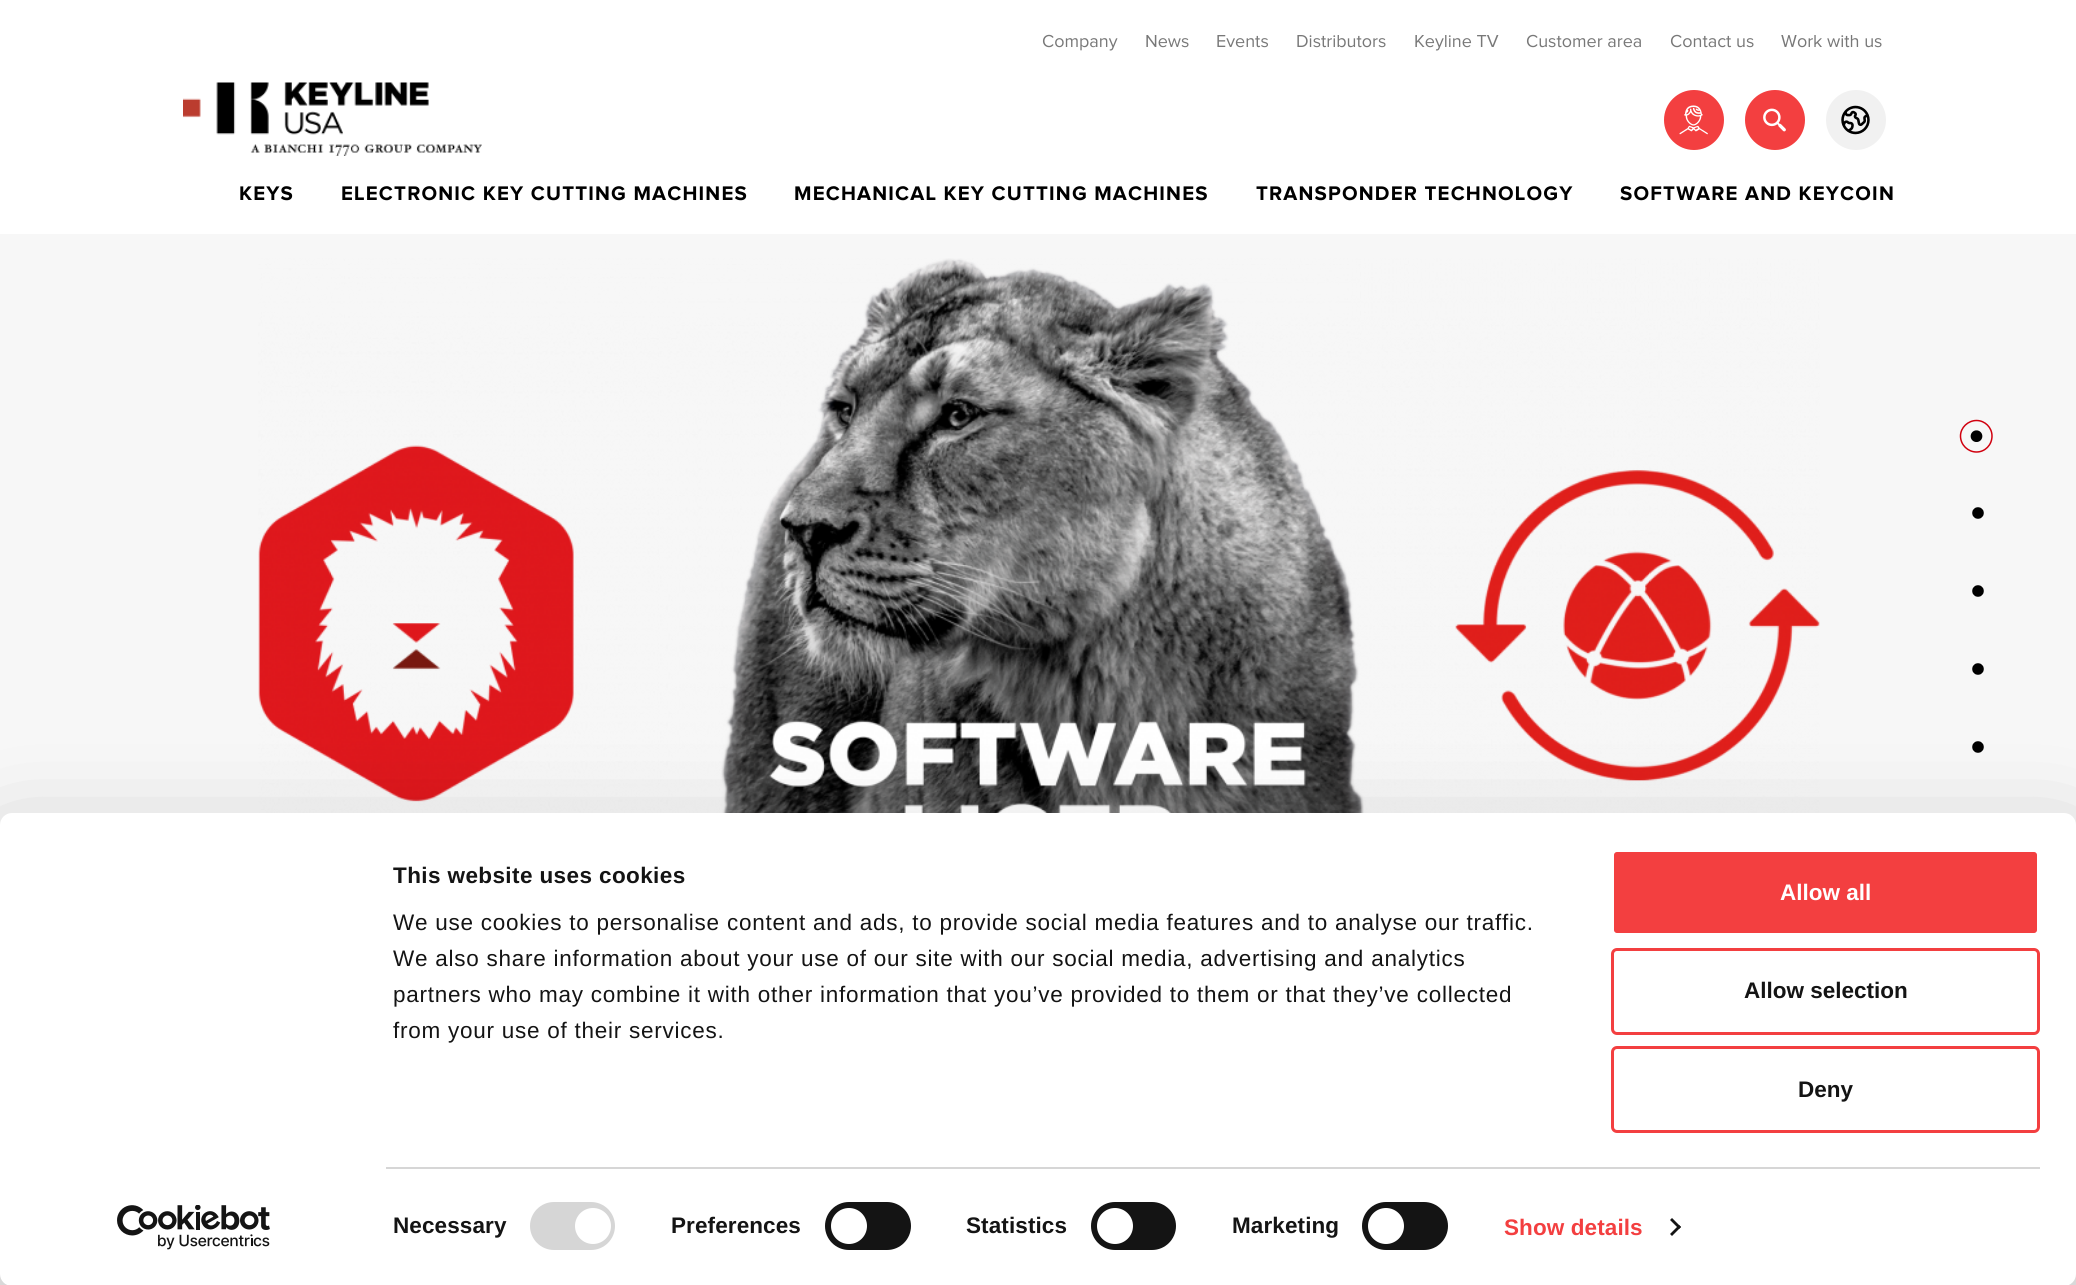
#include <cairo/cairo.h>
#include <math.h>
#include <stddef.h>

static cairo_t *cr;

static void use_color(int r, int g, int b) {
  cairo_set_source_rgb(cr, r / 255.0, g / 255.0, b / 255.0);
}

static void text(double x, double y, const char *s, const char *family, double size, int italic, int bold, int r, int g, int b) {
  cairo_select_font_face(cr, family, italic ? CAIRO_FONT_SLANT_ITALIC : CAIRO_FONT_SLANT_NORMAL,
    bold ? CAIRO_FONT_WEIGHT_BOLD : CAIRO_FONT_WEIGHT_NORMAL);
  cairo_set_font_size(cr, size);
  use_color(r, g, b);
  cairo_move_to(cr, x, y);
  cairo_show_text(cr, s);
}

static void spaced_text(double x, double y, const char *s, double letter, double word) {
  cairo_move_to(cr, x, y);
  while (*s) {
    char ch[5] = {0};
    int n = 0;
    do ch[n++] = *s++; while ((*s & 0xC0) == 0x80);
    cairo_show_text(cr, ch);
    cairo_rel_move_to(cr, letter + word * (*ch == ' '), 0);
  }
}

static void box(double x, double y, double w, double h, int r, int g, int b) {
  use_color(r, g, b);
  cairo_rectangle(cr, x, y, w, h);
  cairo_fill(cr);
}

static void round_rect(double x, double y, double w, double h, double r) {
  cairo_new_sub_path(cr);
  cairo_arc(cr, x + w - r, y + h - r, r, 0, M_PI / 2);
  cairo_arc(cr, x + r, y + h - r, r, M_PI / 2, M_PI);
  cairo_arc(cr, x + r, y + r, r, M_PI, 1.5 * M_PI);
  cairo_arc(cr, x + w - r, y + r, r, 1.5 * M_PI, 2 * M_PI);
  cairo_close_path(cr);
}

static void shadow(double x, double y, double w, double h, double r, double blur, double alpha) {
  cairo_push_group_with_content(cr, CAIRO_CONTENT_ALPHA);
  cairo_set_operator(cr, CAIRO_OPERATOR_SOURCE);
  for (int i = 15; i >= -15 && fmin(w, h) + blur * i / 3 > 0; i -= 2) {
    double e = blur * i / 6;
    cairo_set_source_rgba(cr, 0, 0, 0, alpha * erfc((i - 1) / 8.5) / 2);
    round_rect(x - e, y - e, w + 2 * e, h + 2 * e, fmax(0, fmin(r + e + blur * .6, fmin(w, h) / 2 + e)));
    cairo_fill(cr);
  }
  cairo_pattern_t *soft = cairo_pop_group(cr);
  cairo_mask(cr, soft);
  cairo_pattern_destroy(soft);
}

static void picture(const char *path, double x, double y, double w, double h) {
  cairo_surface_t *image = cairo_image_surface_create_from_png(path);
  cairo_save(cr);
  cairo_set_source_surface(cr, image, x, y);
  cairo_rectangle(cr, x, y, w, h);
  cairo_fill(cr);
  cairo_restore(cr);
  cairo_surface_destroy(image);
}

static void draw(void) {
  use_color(255, 255, 255);
  cairo_paint(cr);
  picture("img_01.png", 183, 82, 299, 74);
  use_color(243, 63, 64);
  cairo_arc(cr, 1694, 120, 29, 0, 2 * M_PI);
  cairo_fill_preserve(cr);
  cairo_stroke(cr);
  picture("img_02.png", 1679, 105, 29, 30);
  cairo_arc(cr, 1775, 120, 29, 0, 2 * M_PI);
  cairo_fill_preserve(cr);
  cairo_stroke(cr);
  picture("img_03.png", 1763, 108, 23, 24);
  use_color(241, 241, 241);
  cairo_arc(cr, 1856, 120, 29, 0, 2 * M_PI);
  cairo_fill_preserve(cr);
  cairo_stroke(cr);
  picture("img_04.png", 1841, 105, 29, 30);
  box(0, 234, 2076, 591, 247, 247, 247);
  picture("img_05.png", 258, 258, 1562, 555);
  cairo_new_path(cr);
  cairo_move_to(cr, 1976.5, 436.2);
  cairo_line_to(cr, 1976.5, 436.5);
  use_color(0, 0, 0);
  cairo_set_line_width(cr, 11.7);
  cairo_set_line_cap(cr, CAIRO_LINE_CAP_ROUND);
  cairo_set_dash(cr, (double[]){0, 30}, 2, 0);
  cairo_stroke(cr);
  cairo_new_path(cr);
  cairo_move_to(cr, 1992, 436);
  cairo_curve_to(cr, 1992, 445, 1985, 452, 1976.5, 452);
  cairo_curve_to(cr, 1968, 452, 1960.5, 445, 1960.5, 436);
  cairo_curve_to(cr, 1960.5, 427.5, 1968, 420.5, 1976.5, 420.5);
  cairo_curve_to(cr, 1985, 420.5, 1992, 427.5, 1992, 436);
  cairo_close_path(cr);
  use_color(208, 0, 14);
  cairo_set_line_width(cr, 1.5);
  cairo_set_line_cap(cr, CAIRO_LINE_CAP_BUTT);
  cairo_set_dash(cr, NULL, 0, 0);
  cairo_stroke(cr);
  picture("img_06.png", 1972, 507, 12, 12);
  picture("img_06.png", 1972, 585, 12, 12);
  picture("img_06.png", 1972, 663, 12, 12);
  picture("img_06.png", 1972, 741, 12, 12);
  use_color(0, 0, 0);
  shadow(0, 858, 2076, 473, 12, 52.5, 0.3);
  use_color(255, 255, 255);
  round_rect(0, 813, 2076, 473, 12);
  cairo_fill(cr);
  box(386, 1167, 1654, 2, 214, 214, 214);
  round_rect(530, 1202, 85, 48, 24);
  cairo_fill(cr);
  use_color(255, 255, 255);
  cairo_arc(cr, 593, 1226, 18, 0, 2 * M_PI);
  cairo_fill(cr);
  use_color(20, 20, 20);
  round_rect(825, 1202, 86, 48, 24);
  cairo_fill(cr);
  use_color(255, 255, 255);
  cairo_arc(cr, 849, 1226, 18, 0, 2 * M_PI);
  cairo_fill(cr);
  use_color(20, 20, 20);
  round_rect(1091, 1202, 85, 48, 24);
  cairo_fill(cr);
  use_color(255, 255, 255);
  cairo_arc(cr, 1115, 1226, 18, 0, 2 * M_PI);
  cairo_fill(cr);
  use_color(20, 20, 20);
  round_rect(1362, 1202, 86, 48, 24);
  cairo_fill(cr);
  use_color(255, 255, 255);
  cairo_arc(cr, 1386, 1226, 18, 0, 2 * M_PI);
  cairo_fill(cr);
  use_color(20, 20, 20);
  cairo_new_path(cr);
  cairo_move_to(cr, 1672, 1218);
  cairo_line_to(cr, 1681, 1227);
  cairo_line_to(cr, 1679, 1229);
  cairo_line_to(cr, 1670, 1220);
  cairo_close_path(cr);
  cairo_fill(cr);
  cairo_new_path(cr);
  cairo_move_to(cr, 1679, 1225);
  cairo_line_to(cr, 1681, 1227);
  cairo_line_to(cr, 1672, 1236);
  cairo_line_to(cr, 1670, 1234);
  cairo_close_path(cr);
  cairo_fill(cr);
  use_color(243, 63, 64);
  round_rect(1612.5, 850.5, 426, 84, 4.5);
  cairo_fill_preserve(cr);
  use_color(255, 255, 255);
  cairo_set_line_width(cr, 3);
  cairo_stroke(cr);
  round_rect(1612.5, 949.5, 426, 84, 4.5);
  use_color(243, 63, 64);
  cairo_stroke(cr);
  round_rect(1612.5, 1047.5, 426, 84, 4.5);
  cairo_stroke(cr);
  picture("img_07.png", 117, 1205, 153, 45);
  text(1042, 47, "Company", "Proxima Nova", 18, 0, 0, 120, 120, 120);
  text(1145, 47, "News", "Proxima Nova", 18, 0, 0, 120, 120, 120);
  text(1216, 47, "Events", "Proxima Nova", 18, 0, 0, 120, 120, 120);
  text(1296, 47, "Distributors", "Proxima Nova", 18, 0, 0, 120, 120, 120);
  text(1414, 47, "Keyline TV", "Proxima Nova", 18, 0, 0, 120, 120, 120);
  text(1526, 47, "Customer area", "Proxima Nova", 18, 0, 0, 120, 120, 120);
  text(1670, 47, "Contact us", "Proxima Nova", 18, 0, 0, 120, 120, 120);
  text(1781, 47, "Work with us", "Proxima Nova", 18, 0, 0, 120, 120, 120);
  cairo_select_font_face(cr, "Proxima Nova", CAIRO_FONT_SLANT_NORMAL, CAIRO_FONT_WEIGHT_BOLD);
  cairo_set_font_size(cr, 20.4);
  use_color(0, 0, 0);
  spaced_text(239, 200, "KEYS", 1.2, 0);
  spaced_text(341, 200, "ELECTRONIC KEY CUTTING MACHINES", 1.2, 0);
  spaced_text(794, 200, "MECHANICAL KEY CUTTING MACHINES", 1.2, 0);
  spaced_text(1256, 200, "TRANSPONDER TECHNOLOGY", 1.2, 0);
  spaced_text(1620, 200, "SOFTWARE AND KEYCOIN", 1.2, 0);
  cairo_select_font_face(cr, "Liberation Sans", CAIRO_FONT_SLANT_NORMAL, CAIRO_FONT_WEIGHT_BOLD);
  cairo_set_font_size(cr, 22.5);
  use_color(20, 20, 20);
  spaced_text(393, 883, "This website uses cookies", 0.4, 0);
  cairo_select_font_face(cr, "Liberation Sans", CAIRO_FONT_SLANT_NORMAL, CAIRO_FONT_WEIGHT_NORMAL);
  spaced_text(393, 930, "We use cookies to personalise content and ads, to provide social media features and to analyse our traffic.", 0.75, 0);
  spaced_text(393, 966, "We also share information about your use of our site with our social media, advertising and analytics", 0.75, 0);
  spaced_text(393, 1002, "partners who may combine it with other information that you’ve provided to them or that they’ve collected", 0.75, 0);
  spaced_text(393, 1038, "from your use of their services.", 0.75, 0);
  cairo_select_font_face(cr, "Liberation Sans", CAIRO_FONT_SLANT_NORMAL, CAIRO_FONT_WEIGHT_BOLD);
  spaced_text(393, 1233, "Necessary", 0.1, 0);
  spaced_text(671, 1233, "Preferences", 0.1, 0);
  spaced_text(966, 1233, "Statistics", 0.1, 0);
  spaced_text(1232, 1233, "Marketing", 0.1, 0);
  use_color(243, 63, 64);
  spaced_text(1504, 1235, "Show details", 0.1, 0);
  text(1780, 900, "Allow all", "Liberation Sans", 22.5, 0, 1, 255, 255, 255);
  text(1744, 998, "Allow selection", "Liberation Sans", 22.5, 0, 1, 20, 20, 20);
  text(1798, 1097, "Deny", "Liberation Sans", 22.5, 0, 1, 20, 20, 20);
}

int main(void) {
  cairo_surface_t *surface = cairo_image_surface_create(CAIRO_FORMAT_RGB24, 2076, 1285);
  cr = cairo_create(surface);
  cairo_font_options_t *options = cairo_font_options_create();
  cairo_font_options_set_hint_metrics(options, CAIRO_HINT_METRICS_OFF);
  cairo_font_options_set_hint_style(options, CAIRO_HINT_STYLE_NONE);
  cairo_set_font_options(cr, options);
  cairo_set_miter_limit(cr, 4);
  draw();
  cairo_surface_write_to_png(surface, "out.png");
  cairo_font_options_destroy(options);
  cairo_destroy(cr);
  cairo_surface_destroy(surface);
  return 0;
}
